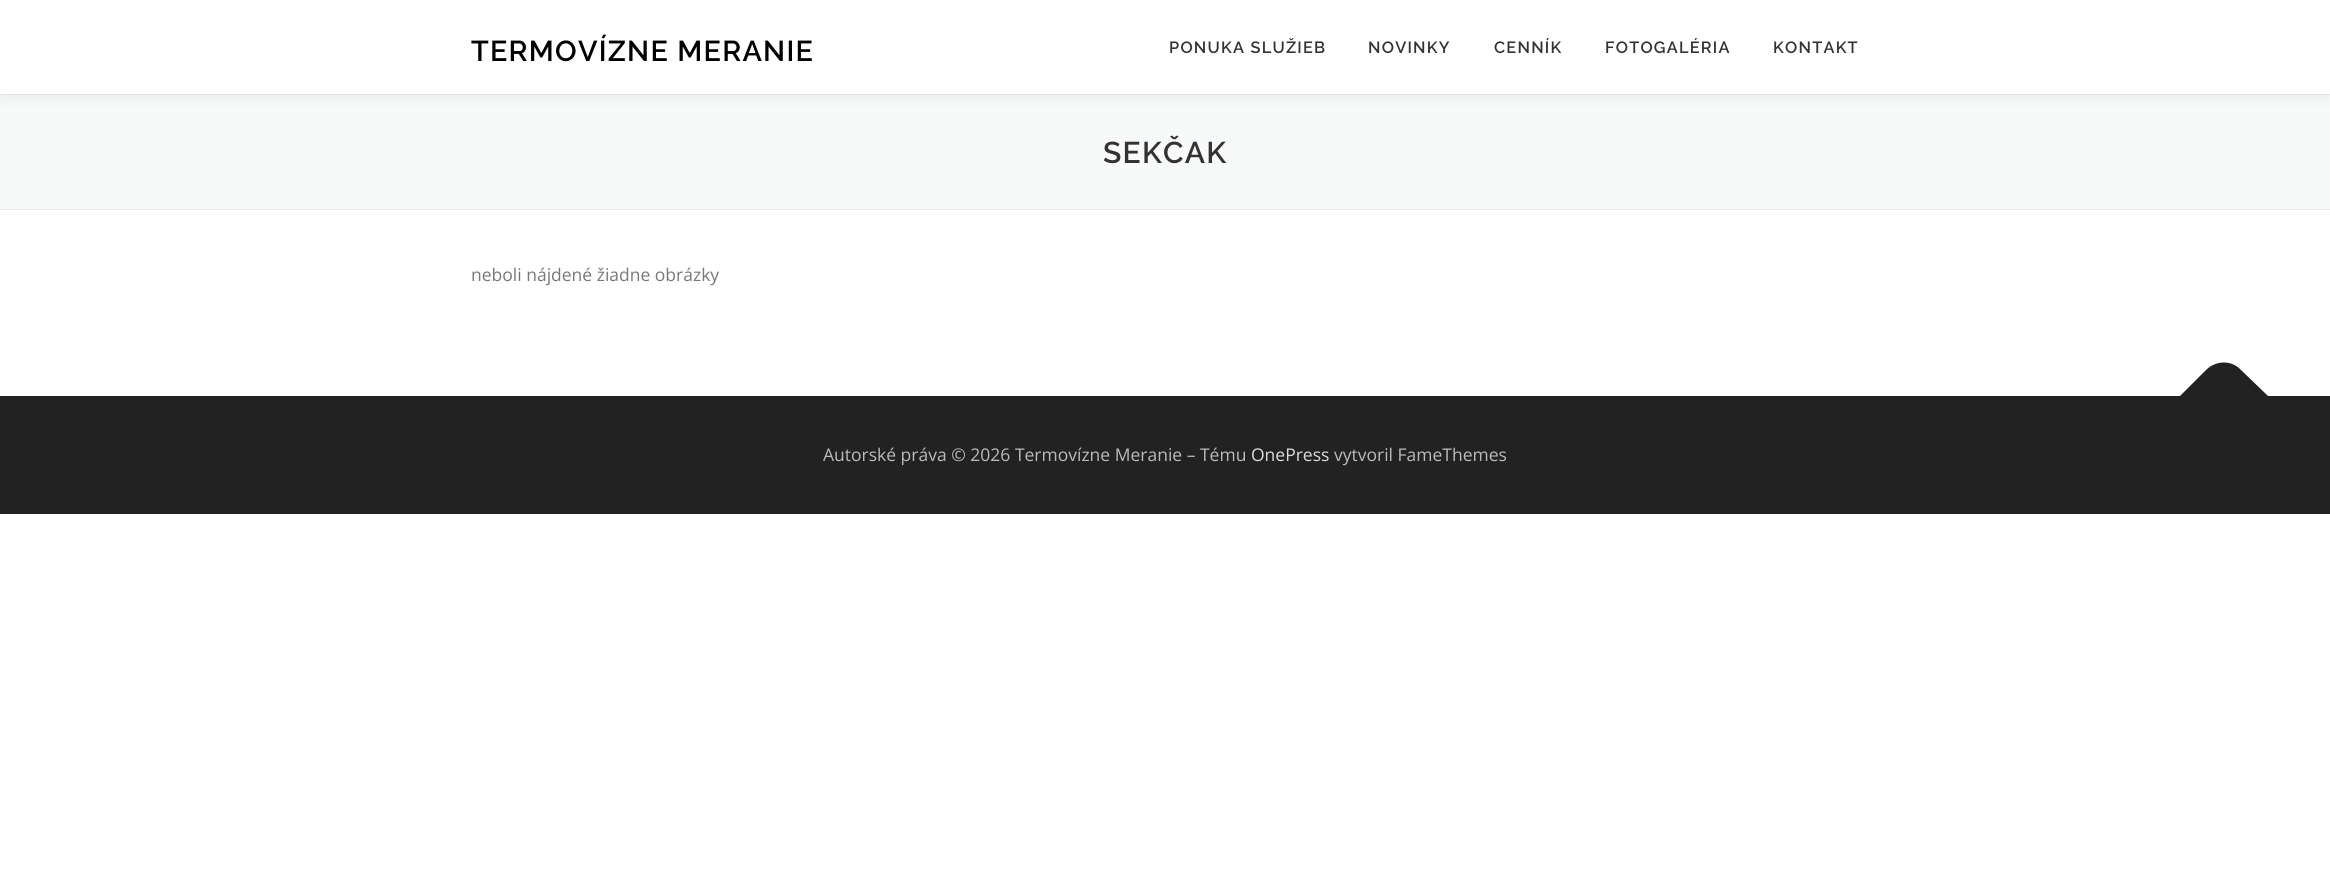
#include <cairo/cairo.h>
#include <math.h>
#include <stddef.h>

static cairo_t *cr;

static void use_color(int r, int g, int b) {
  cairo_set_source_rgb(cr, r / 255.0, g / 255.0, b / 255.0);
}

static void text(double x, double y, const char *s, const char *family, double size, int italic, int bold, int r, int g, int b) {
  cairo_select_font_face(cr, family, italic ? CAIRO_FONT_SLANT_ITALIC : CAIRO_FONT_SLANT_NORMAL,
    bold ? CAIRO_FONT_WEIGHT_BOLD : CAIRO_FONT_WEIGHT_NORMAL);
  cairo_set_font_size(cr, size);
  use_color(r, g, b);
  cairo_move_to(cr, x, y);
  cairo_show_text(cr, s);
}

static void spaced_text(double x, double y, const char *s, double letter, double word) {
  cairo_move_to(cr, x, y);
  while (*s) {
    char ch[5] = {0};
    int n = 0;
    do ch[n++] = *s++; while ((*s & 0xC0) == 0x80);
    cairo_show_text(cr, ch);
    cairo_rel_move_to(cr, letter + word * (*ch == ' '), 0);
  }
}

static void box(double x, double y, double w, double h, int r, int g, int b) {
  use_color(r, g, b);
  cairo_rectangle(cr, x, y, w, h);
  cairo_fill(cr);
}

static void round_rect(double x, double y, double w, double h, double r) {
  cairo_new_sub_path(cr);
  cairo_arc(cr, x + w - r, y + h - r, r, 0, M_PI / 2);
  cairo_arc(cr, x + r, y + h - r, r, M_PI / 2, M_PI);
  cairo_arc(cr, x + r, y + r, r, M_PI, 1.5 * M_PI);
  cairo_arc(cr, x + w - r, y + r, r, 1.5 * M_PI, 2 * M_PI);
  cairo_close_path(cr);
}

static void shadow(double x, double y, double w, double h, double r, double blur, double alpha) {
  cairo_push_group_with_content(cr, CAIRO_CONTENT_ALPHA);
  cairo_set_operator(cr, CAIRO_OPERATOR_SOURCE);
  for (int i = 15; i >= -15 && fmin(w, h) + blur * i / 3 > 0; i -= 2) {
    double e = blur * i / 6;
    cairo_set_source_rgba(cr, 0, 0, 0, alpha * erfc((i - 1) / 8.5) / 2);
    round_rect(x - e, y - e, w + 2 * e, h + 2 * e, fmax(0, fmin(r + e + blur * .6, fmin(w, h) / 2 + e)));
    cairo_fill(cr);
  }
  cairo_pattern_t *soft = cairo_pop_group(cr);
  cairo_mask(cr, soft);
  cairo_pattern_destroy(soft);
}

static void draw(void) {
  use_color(255, 255, 255);
  cairo_paint(cr);
  box(0, 95, 2330, 114, 248, 249, 249);
  box(0, 94, 2330, 1, 233, 233, 233);
  use_color(50, 50, 50);
  shadow(0, 6, 2330, 94, 0, 6, 0.06);
  box(0, 1, 2330, 93, 255, 255, 255);
  box(0, 209, 2330, 1, 233, 233, 233);
  box(0, 396, 2330, 118, 34, 34, 34);
  cairo_new_path(cr);
  cairo_move_to(cr, 2180, 396);
  cairo_line_to(cr, 2206, 370);
  cairo_curve_to(cr, 2216, 360, 2232, 360, 2241, 370);
  cairo_line_to(cr, 2268, 396);
  cairo_line_to(cr, 2224, 440);
  cairo_close_path(cr);
  cairo_fill(cr);
  cairo_select_font_face(cr, "Raleway SemiBold", CAIRO_FONT_SLANT_NORMAL, CAIRO_FONT_WEIGHT_NORMAL);
  cairo_set_font_size(cr, 28.75);
  use_color(0, 0, 0);
  spaced_text(471, 61, "TERMOVÍZNE MERANIE", 1.25, 0);
  cairo_set_font_size(cr, 16.25);
  use_color(51, 51, 51);
  spaced_text(1169, 53, "PONUKA SLUŽIEB", 1.25, 0);
  spaced_text(1368, 53, "NOVINKY", 1.25, 0);
  spaced_text(1494, 53, "CENNÍK", 1.25, 0);
  spaced_text(1605, 53, "FOTOGALÉRIA", 1.25, 0);
  spaced_text(1773, 53, "KONTAKT", 1.25, 0);
  cairo_set_font_size(cr, 30);
  spaced_text(1103, 163, "SEKČAK", 1.25, 0);
  text(471, 281, "neboli nájdené žiadne obrázky", "Open Sans", 17.5, 0, 0, 119, 119, 119);
  text(823, 461, "Autorské práva © 2026 Termovízne Meranie – Tému", "Open Sans", 17.5, 0, 0, 187, 187, 187);
  text(1251, 461, "OnePress", "Open Sans", 17.5, 0, 0, 221, 221, 221);
  text(1334, 461, "vytvoril FameThemes", "Open Sans", 17.5, 0, 0, 187, 187, 187);
}

int main(void) {
  cairo_surface_t *surface = cairo_image_surface_create(CAIRO_FORMAT_RGB24, 2330, 883);
  cr = cairo_create(surface);
  cairo_font_options_t *options = cairo_font_options_create();
  cairo_font_options_set_hint_metrics(options, CAIRO_HINT_METRICS_OFF);
  cairo_font_options_set_hint_style(options, CAIRO_HINT_STYLE_NONE);
  cairo_set_font_options(cr, options);
  cairo_set_miter_limit(cr, 4);
  draw();
  cairo_surface_write_to_png(surface, "out.png");
  cairo_font_options_destroy(options);
  cairo_destroy(cr);
  cairo_surface_destroy(surface);
  return 0;
}
